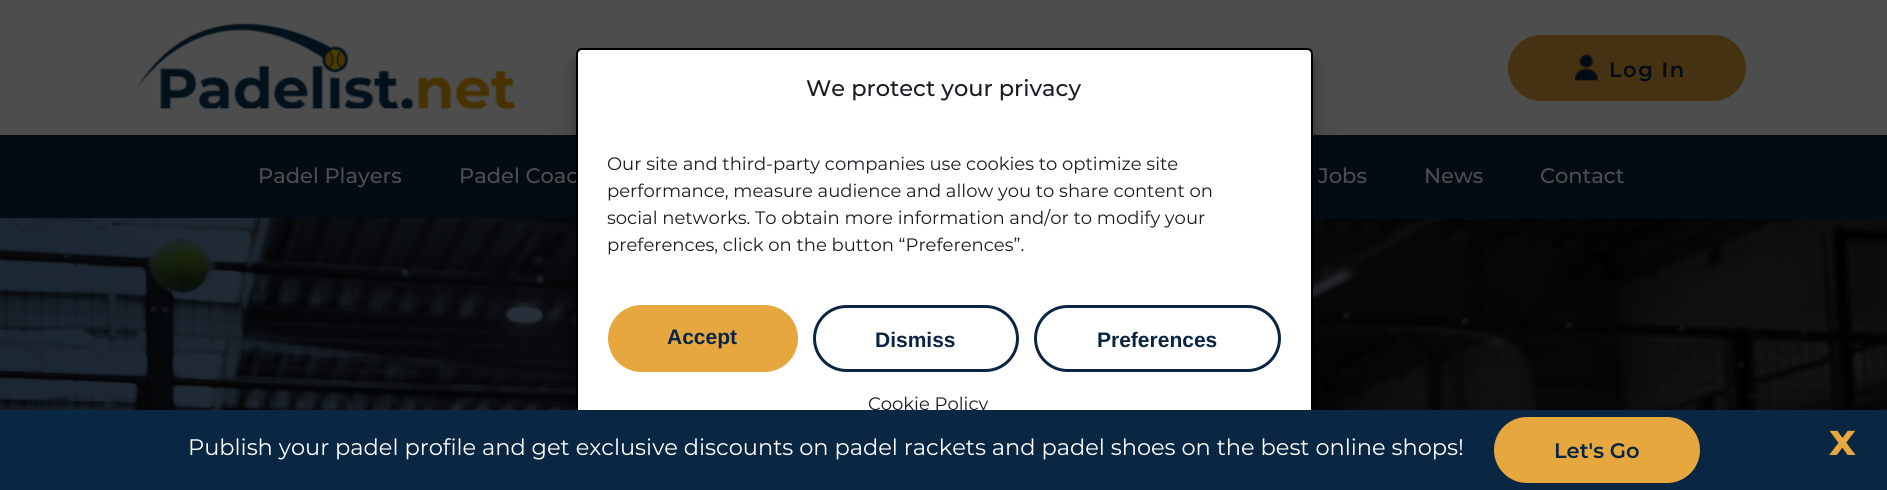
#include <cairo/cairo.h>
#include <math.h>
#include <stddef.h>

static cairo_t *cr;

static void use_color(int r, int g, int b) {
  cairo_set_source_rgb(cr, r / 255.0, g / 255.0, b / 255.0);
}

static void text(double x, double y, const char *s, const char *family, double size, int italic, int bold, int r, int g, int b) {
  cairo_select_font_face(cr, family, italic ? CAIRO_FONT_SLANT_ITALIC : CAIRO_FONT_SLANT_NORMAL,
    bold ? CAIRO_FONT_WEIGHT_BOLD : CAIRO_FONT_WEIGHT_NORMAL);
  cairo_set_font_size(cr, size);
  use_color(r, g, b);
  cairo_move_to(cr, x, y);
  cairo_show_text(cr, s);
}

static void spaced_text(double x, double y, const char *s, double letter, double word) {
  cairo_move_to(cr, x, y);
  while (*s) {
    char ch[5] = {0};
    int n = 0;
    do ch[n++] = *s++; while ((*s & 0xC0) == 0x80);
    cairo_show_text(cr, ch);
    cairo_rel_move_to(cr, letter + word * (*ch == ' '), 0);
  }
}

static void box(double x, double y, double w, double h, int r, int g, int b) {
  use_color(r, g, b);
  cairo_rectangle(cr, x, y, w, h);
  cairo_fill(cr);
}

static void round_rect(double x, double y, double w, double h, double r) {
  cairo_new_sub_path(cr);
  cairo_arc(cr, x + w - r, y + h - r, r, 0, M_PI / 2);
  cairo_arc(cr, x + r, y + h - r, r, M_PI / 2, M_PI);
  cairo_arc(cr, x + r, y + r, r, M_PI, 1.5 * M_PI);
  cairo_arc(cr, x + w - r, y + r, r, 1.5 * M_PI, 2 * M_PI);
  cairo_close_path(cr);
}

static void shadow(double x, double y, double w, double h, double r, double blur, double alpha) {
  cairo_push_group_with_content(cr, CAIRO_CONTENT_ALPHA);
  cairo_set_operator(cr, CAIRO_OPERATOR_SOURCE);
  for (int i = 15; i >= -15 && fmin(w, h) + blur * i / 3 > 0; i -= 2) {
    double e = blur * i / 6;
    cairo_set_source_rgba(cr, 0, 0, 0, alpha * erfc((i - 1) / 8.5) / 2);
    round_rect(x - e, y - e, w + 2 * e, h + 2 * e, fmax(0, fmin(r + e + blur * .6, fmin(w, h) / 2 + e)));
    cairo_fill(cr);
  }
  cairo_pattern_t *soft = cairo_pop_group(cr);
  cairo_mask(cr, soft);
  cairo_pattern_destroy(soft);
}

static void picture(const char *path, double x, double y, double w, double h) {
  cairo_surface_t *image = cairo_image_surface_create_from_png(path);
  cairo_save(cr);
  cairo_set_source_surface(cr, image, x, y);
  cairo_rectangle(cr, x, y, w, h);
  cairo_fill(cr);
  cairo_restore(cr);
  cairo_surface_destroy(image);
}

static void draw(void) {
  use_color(77, 77, 77);
  cairo_paint(cr);
  picture("img_01.png", 136, 23, 379, 86);
  use_color(69, 50, 19);
  round_rect(1508, 35, 238, 66, 33);
  cairo_fill(cr);
  picture("img_02.png", 1575, 54, 23, 27);
  box(0, 135, 1887, 83, 3, 11, 20);
  picture("img_03.png", 0, 218, 1887, 192);
  use_color(0, 0, 0);
  shadow(576, 57, 737, 398, 6, 4.5, 0.23);
  shadow(576, 63, 737, 398, 6, 15, 0.19);
  cairo_select_font_face(cr, "Montserrat SemiBold", CAIRO_FONT_SLANT_NORMAL, CAIRO_FONT_WEIGHT_NORMAL);
  cairo_set_font_size(cr, 21);
  use_color(3, 11, 20);
  spaced_text(1609, 77, "Log In", 1.5, 0);
  text(258, 183, "Padel Players", "Montserrat Medium", 21, 0, 0, 77, 77, 77);
  text(459, 183, "Padel Coac", "Montserrat Medium", 21, 0, 0, 77, 77, 77);
  text(1318, 183, "Jobs", "Montserrat Medium", 21, 0, 0, 77, 77, 77);
  text(1424, 183, "News", "Montserrat Medium", 21, 0, 0, 77, 77, 77);
  text(1540, 183, "Contact", "Montserrat Medium", 21, 0, 0, 77, 77, 77);
  use_color(255, 255, 255);
  round_rect(577, 49, 735, 396, 5);
  cairo_fill_preserve(cr);
  use_color(0, 0, 0);
  cairo_stroke(cr);
  text(806, 96, "We protect your privacy", "Montserrat Medium", 22.5, 0, 0, 25, 30, 35);
  text(607, 170, "Our site and third-party companies use cookies to optimize site", "Montserrat Thin", 18, 0, 0, 25, 30, 35);
  text(607, 197, "performance, measure audience and allow you to share content on", "Montserrat Thin", 18, 0, 0, 25, 30, 35);
  text(607, 224, "social networks. To obtain more information and/or to modify your", "Montserrat Thin", 18, 0, 0, 25, 30, 35);
  text(607, 251, "preferences, click on the button “Preferences”.", "Montserrat Thin", 18, 0, 0, 25, 30, 35);
  use_color(231, 167, 63);
  round_rect(608, 305, 190, 67, 33.5);
  cairo_fill(cr);
  text(667, 344, "Accept", "Liberation Sans", 21, 0, 1, 9, 37, 67);
  round_rect(814.5, 306.5, 203, 64, 32);
  cairo_set_line_width(cr, 3);
  cairo_stroke(cr);
  text(875, 347, "Dismiss", "Liberation Sans", 21, 0, 1, 9, 37, 67);
  round_rect(1035.5, 306.5, 244, 64, 32);
  cairo_stroke(cr);
  text(1097, 347, "Preferences", "Liberation Sans", 21, 0, 1, 9, 37, 67);
  text(868, 410, "Cookie Policy", "Montserrat Thin", 18, 0, 0, 25, 30, 35);
  box(0, 410, 1887, 80, 9, 38, 67);
  text(188, 455, "Publish your padel profile and get exclusive discounts on padel rackets and padel shoes on the best online shops!", "Montserrat Thin", 22.5, 0, 0, 255, 255, 255);
  use_color(231, 167, 63);
  round_rect(1494, 417, 206, 66, 33);
  cairo_fill(cr);
  text(1554, 458, "Let's Go", "Montserrat SemiBold", 21, 0, 0, 9, 37, 67);
  text(1829, 455, "x", "Montserrat", 45, 0, 1, 231, 167, 63);
}

int main(void) {
  cairo_surface_t *surface = cairo_image_surface_create(CAIRO_FORMAT_RGB24, 1887, 490);
  cr = cairo_create(surface);
  cairo_font_options_t *options = cairo_font_options_create();
  cairo_font_options_set_hint_metrics(options, CAIRO_HINT_METRICS_OFF);
  cairo_font_options_set_hint_style(options, CAIRO_HINT_STYLE_NONE);
  cairo_set_font_options(cr, options);
  cairo_set_miter_limit(cr, 4);
  draw();
  cairo_surface_write_to_png(surface, "out.png");
  cairo_font_options_destroy(options);
  cairo_destroy(cr);
  cairo_surface_destroy(surface);
  return 0;
}
